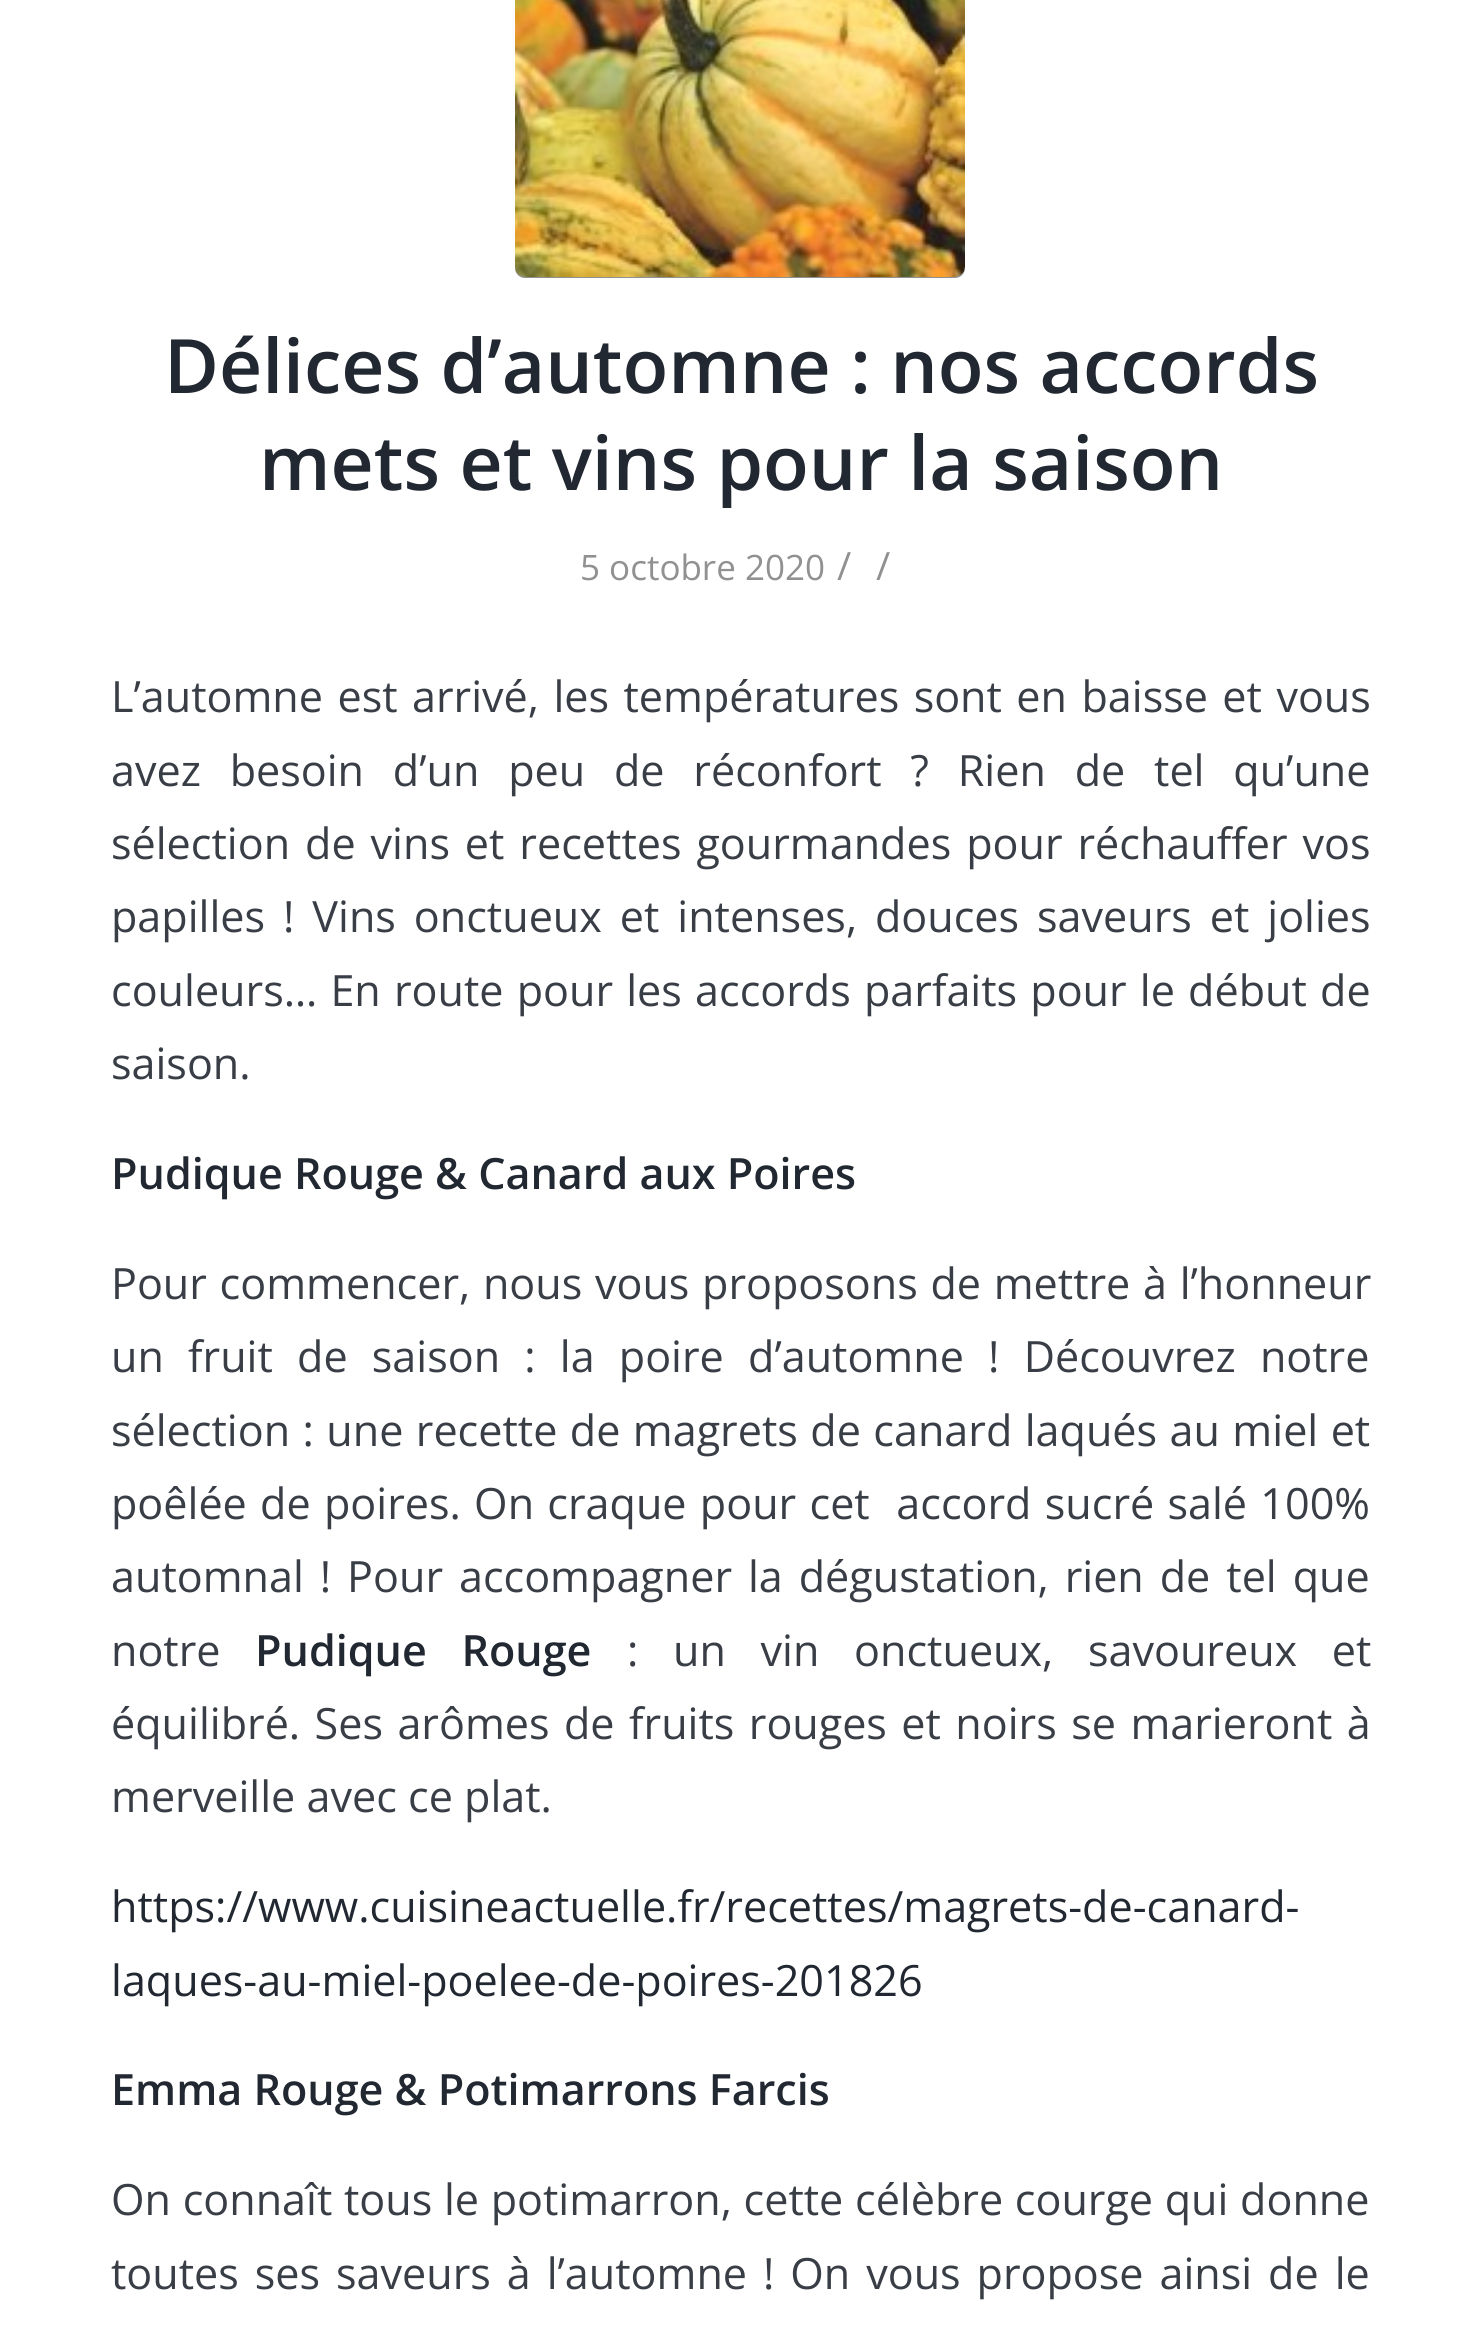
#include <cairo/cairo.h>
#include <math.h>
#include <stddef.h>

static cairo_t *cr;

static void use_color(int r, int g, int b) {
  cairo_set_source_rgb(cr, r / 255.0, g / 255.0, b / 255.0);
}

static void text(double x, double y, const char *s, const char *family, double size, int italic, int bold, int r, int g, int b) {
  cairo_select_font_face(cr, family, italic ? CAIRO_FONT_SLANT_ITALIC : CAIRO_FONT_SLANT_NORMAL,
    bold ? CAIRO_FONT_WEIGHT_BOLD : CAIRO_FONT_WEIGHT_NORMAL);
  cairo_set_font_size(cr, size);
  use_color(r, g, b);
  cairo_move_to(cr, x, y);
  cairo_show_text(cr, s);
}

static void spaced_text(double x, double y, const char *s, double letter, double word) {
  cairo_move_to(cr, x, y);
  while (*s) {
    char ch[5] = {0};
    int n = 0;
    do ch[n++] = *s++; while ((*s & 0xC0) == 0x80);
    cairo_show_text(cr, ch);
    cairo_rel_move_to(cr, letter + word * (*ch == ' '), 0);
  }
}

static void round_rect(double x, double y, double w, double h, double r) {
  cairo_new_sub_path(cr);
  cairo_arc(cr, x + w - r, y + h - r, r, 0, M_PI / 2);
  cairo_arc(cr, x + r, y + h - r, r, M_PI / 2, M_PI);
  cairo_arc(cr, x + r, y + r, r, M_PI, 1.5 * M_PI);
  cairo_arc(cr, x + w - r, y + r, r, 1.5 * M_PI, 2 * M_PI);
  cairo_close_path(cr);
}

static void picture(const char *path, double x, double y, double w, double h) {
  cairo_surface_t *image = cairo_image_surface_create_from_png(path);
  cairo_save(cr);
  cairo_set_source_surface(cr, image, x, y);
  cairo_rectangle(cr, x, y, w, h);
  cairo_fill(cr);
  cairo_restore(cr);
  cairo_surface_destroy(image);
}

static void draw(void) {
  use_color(255, 255, 255);
  cairo_paint(cr);
  use_color(145, 145, 145);
  round_rect(515, -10, 450, 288, 10);
  cairo_fill(cr);
  picture("img_01.png", 515, 0, 450, 277);
  text(164, 393, "Délices d’automne : nos accords", "Open Sans SemiBold", 75, 0, 0, 34, 40, 49);
  text(259, 490, "mets et vins pour la saison", "Open Sans SemiBold", 75, 0, 0, 34, 40, 49);
  text(580, 580, "5 octobre 2020", "Open Sans", 35, 0, 0, 145, 145, 145);
  text(837, 580, "/", "Open Sans", 39, 0, 0, 145, 145, 145);
  text(876, 580, "/", "Open Sans", 39, 0, 0, 145, 145, 145);
  cairo_set_font_size(cr, 43.1);
  use_color(57, 62, 70);
  spaced_text(111, 712, "L’automne est arrivé, les températures sont en baisse et vous", 0, 3.25);
  spaced_text(111, 786, "avez besoin d’un peu de réconfort ? Rien de tel qu’une", 0, 17.6);
  spaced_text(111, 859, "sélection de vins et recettes gourmandes pour réchauffer vos", 0, 3.75);
  spaced_text(111, 932, "papilles ! Vins onctueux et intenses, douces saveurs et jolies", 0, 6.75);
  spaced_text(111, 1006, "couleurs… En route pour les accords parfaits pour le début de", 0, 2);
  text(111, 1079, "saison.", "Open Sans", 43.1, 0, 0, 57, 62, 70);
  text(111, 1189, "Pudique Rouge & Canard aux Poires", "Open Sans SemiBold", 43.1, 0, 0, 34, 40, 49);
  cairo_select_font_face(cr, "Open Sans", CAIRO_FONT_SLANT_NORMAL, CAIRO_FONT_WEIGHT_NORMAL);
  use_color(57, 62, 70);
  spaced_text(111, 1299, "Pour commencer, nous vous proposons de mettre à l’honneur", 0, 1.5);
  spaced_text(111, 1372, "un fruit de saison : la poire d’automne ! Découvrez notre", 0, 13);
  spaced_text(111, 1446, "sélection : une recette de magrets de canard laqués au miel et", 0, 1.25);
  spaced_text(111, 1519, "poêlée de poires. On craque pour cet  accord sucré salé 100%", 0, 2.1);
  spaced_text(111, 1592, "automnal ! Pour accompagner la dégustation, rien de tel que", 0, 4.75);
  text(111, 1666, "notre", "Open Sans", 43.1, 0, 0, 57, 62, 70);
  cairo_select_font_face(cr, "Open Sans SemiBold", CAIRO_FONT_SLANT_NORMAL, CAIRO_FONT_WEIGHT_NORMAL);
  use_color(34, 40, 49);
  spaced_text(255, 1666, "Pudique Rouge", 0, 23.5);
  cairo_select_font_face(cr, "Open Sans", CAIRO_FONT_SLANT_NORMAL, CAIRO_FONT_WEIGHT_NORMAL);
  use_color(57, 62, 70);
  spaced_text(627, 1666, ": un vin onctueux, savoureux et", 0, 23.5);
  spaced_text(111, 1739, "équilibré. Ses arômes de fruits rouges et noirs se marieront à", 0, 3.25);
  text(111, 1812, "merveille avec ce plat.", "Open Sans", 43.1, 0, 0, 57, 62, 70);
  text(111, 1922, "https://www.cuisineactuelle.fr/recettes/magrets-de-canard-", "Open Sans", 43.1, 0, 0, 34, 40, 49);
  text(111, 1996, "laques-au-miel-poelee-de-poires-201826", "Open Sans", 43.1, 0, 0, 34, 40, 49);
  text(111, 2105, "Emma Rouge & Potimarrons Farcis", "Open Sans SemiBold", 43.1, 0, 0, 34, 40, 49);
  cairo_select_font_face(cr, "Open Sans", CAIRO_FONT_SLANT_NORMAL, CAIRO_FONT_WEIGHT_NORMAL);
  use_color(57, 62, 70);
  spaced_text(111, 2215, "On connaît tous le potimarron, cette célèbre courge qui donne", 0, 0.5);
  spaced_text(111, 2289, "toutes ses saveurs à l’automne ! On vous propose ainsi de le", 0, 4.75);
}

int main(void) {
  cairo_surface_t *surface = cairo_image_surface_create(CAIRO_FORMAT_RGB24, 1481, 2336);
  cr = cairo_create(surface);
  cairo_font_options_t *options = cairo_font_options_create();
  cairo_font_options_set_hint_metrics(options, CAIRO_HINT_METRICS_OFF);
  cairo_font_options_set_hint_style(options, CAIRO_HINT_STYLE_NONE);
  cairo_set_font_options(cr, options);
  cairo_set_miter_limit(cr, 4);
  draw();
  cairo_surface_write_to_png(surface, "out.png");
  cairo_font_options_destroy(options);
  cairo_destroy(cr);
  cairo_surface_destroy(surface);
  return 0;
}
